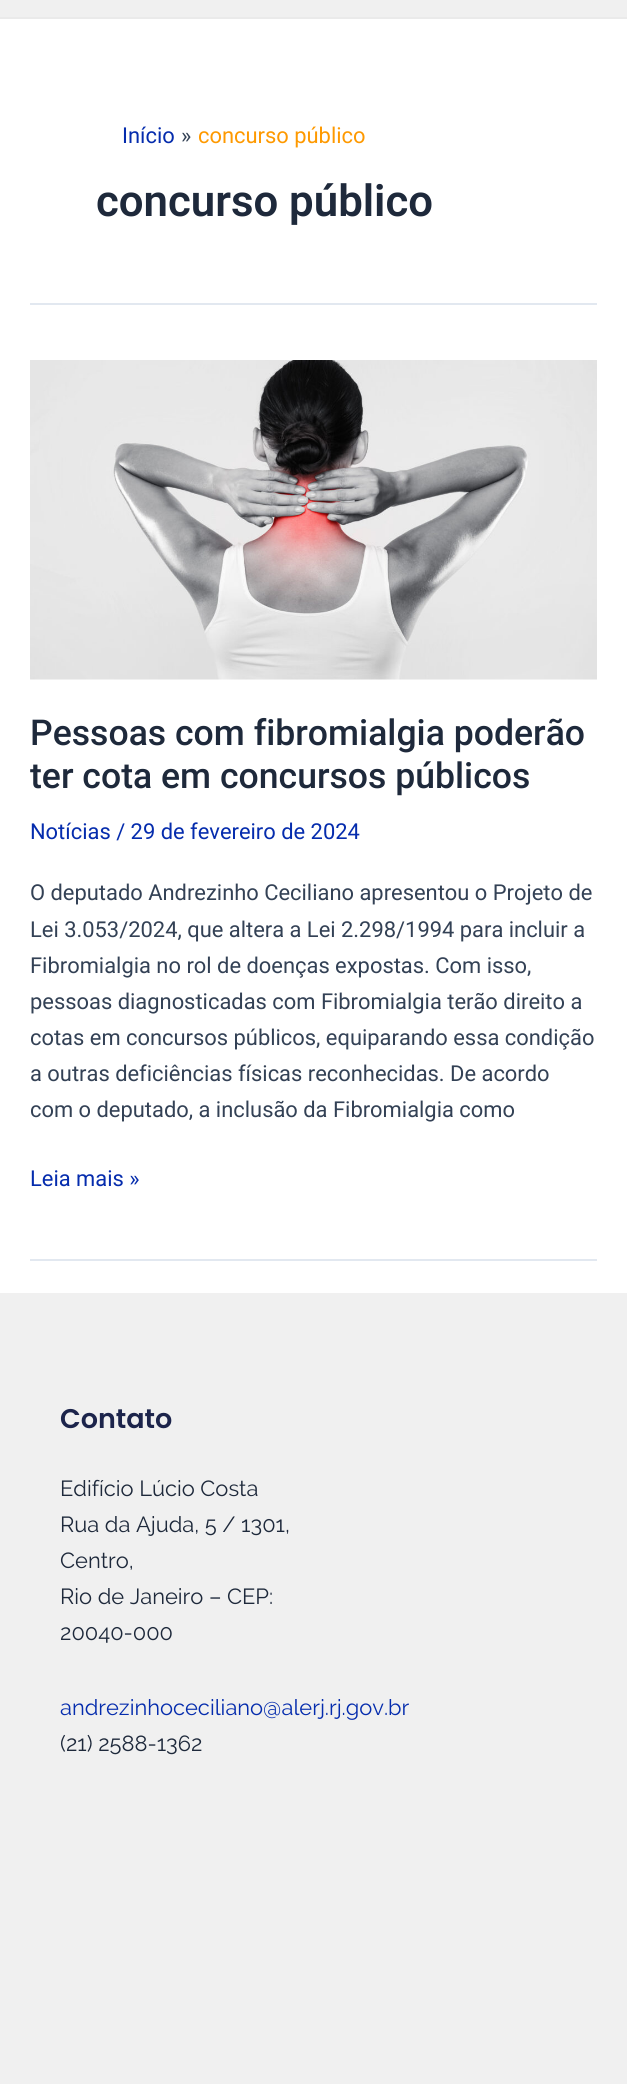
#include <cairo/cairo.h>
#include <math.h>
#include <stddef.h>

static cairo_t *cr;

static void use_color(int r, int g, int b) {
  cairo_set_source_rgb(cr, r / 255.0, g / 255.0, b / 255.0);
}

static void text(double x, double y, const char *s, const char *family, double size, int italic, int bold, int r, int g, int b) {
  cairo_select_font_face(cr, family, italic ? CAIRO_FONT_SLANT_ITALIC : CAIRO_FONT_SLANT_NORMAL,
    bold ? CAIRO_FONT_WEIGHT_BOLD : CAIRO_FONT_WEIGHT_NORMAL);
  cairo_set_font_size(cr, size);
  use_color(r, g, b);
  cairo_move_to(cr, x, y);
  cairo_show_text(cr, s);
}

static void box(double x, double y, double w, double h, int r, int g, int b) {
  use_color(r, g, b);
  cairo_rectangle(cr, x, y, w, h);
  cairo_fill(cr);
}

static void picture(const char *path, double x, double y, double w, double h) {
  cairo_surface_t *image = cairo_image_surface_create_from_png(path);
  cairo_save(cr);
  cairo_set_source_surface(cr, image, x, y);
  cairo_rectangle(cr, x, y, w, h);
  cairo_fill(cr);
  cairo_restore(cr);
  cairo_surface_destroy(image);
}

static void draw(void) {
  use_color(255, 255, 255);
  cairo_paint(cr);
  box(0, 0, 627, 17, 240, 240, 240);
  box(0, 17, 627, 2, 234, 234, 234);
  box(30, 303, 567, 2, 226, 232, 240);
  box(30, 1259, 567, 2, 226, 232, 240);
  picture("img_01.png", 30, 360, 567, 320);
  box(0, 1293, 627, 791, 240, 240, 240);
  text(122, 143, "Início", "Roboto", 21.9, 0, 0, 5, 44, 173);
  text(181, 143, "»", "Roboto", 21.9, 0, 0, 51, 65, 85);
  text(198, 143, "concurso público", "Roboto", 21.9, 0, 0, 254, 153, 0);
  text(96, 216, "concurso público", "Roboto SemiBold", 43.75, 0, 0, 30, 41, 59);
  text(30, 745, "Pessoas com fibromialgia poderão", "Roboto Medium", 35.6, 0, 0, 30, 41, 59);
  text(30, 788, "ter cota em concursos públicos", "Roboto Medium", 35.6, 0, 0, 30, 41, 59);
  text(30, 839, "Notícias / 29 de fevereiro de 2024", "Roboto", 21.9, 0, 0, 5, 44, 173);
  text(30, 900, "O deputado Andrezinho Ceciliano apresentou o Projeto de", "Roboto", 21.9, 0, 0, 51, 65, 85);
  text(30, 937, "Lei 3.053/2024, que altera a Lei 2.298/1994 para incluir a", "Roboto", 21.9, 0, 0, 51, 65, 85);
  text(30, 973, "Fibromialgia no rol de doenças expostas. Com isso,", "Roboto", 21.9, 0, 0, 51, 65, 85);
  text(30, 1009, "pessoas diagnosticadas com Fibromialgia terão direito a", "Roboto", 21.9, 0, 0, 51, 65, 85);
  text(30, 1045, "cotas em concursos públicos, equiparando essa condição", "Roboto", 21.9, 0, 0, 51, 65, 85);
  text(30, 1081, "a outras deficiências físicas reconhecidas. De acordo", "Roboto", 21.9, 0, 0, 51, 65, 85);
  text(30, 1117, "com o deputado, a inclusão da Fibromialgia como", "Roboto", 21.9, 0, 0, 51, 65, 85);
  text(30, 1186, "Leia mais »", "Roboto", 21.9, 0, 0, 5, 44, 173);
  text(60, 1428, "Contato", "Poppins SemiBold", 27, 0, 0, 28, 36, 75);
  text(60, 1496, "Edifício Lúcio Costa", "Raleway", 21.9, 0, 0, 30, 41, 59);
  text(60, 1532, "Rua da Ajuda, 5 / 1301,", "Raleway", 21.9, 0, 0, 30, 41, 59);
  text(60, 1568, "Centro,", "Raleway", 21.9, 0, 0, 30, 41, 59);
  text(60, 1604, "Rio de Janeiro – CEP:", "Raleway", 21.9, 0, 0, 30, 41, 59);
  text(60, 1640, "20040-000", "Raleway", 21.9, 0, 0, 30, 41, 59);
  text(60, 1715, "andrezinhoceciliano@alerj.rj.gov.br", "Raleway", 21.9, 0, 0, 5, 44, 173);
  text(60, 1751, "(21) 2588-1362", "Raleway", 21.9, 0, 0, 30, 41, 59);
}

int main(void) {
  cairo_surface_t *surface = cairo_image_surface_create(CAIRO_FORMAT_RGB24, 627, 2084);
  cr = cairo_create(surface);
  cairo_font_options_t *options = cairo_font_options_create();
  cairo_font_options_set_hint_metrics(options, CAIRO_HINT_METRICS_OFF);
  cairo_font_options_set_hint_style(options, CAIRO_HINT_STYLE_NONE);
  cairo_set_font_options(cr, options);
  cairo_set_miter_limit(cr, 4);
  draw();
  cairo_surface_write_to_png(surface, "out.png");
  cairo_font_options_destroy(options);
  cairo_destroy(cr);
  cairo_surface_destroy(surface);
  return 0;
}
